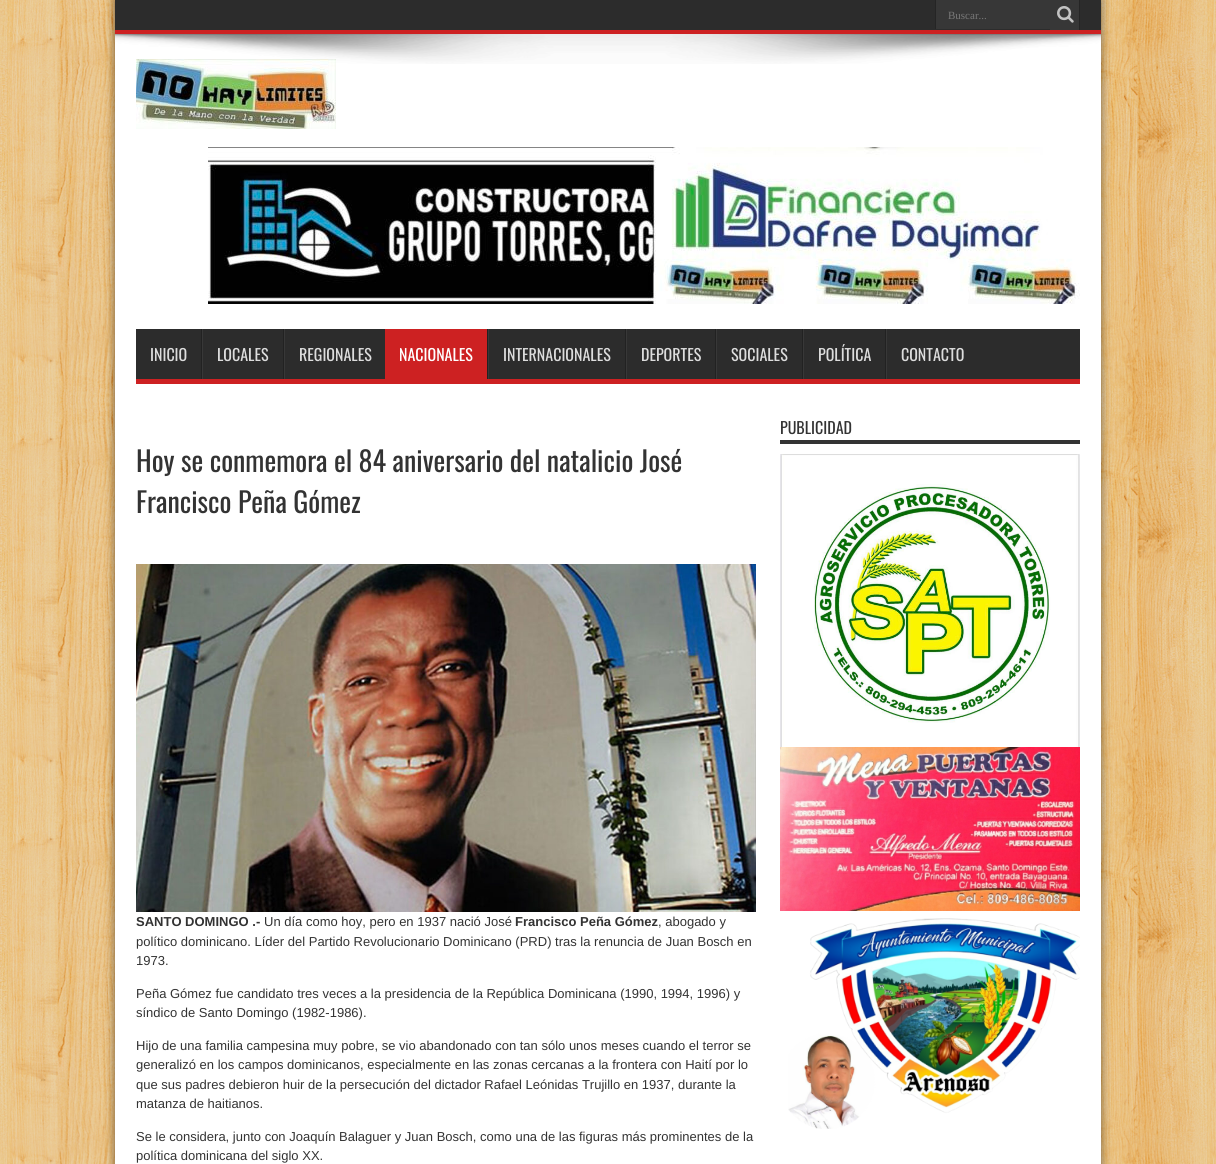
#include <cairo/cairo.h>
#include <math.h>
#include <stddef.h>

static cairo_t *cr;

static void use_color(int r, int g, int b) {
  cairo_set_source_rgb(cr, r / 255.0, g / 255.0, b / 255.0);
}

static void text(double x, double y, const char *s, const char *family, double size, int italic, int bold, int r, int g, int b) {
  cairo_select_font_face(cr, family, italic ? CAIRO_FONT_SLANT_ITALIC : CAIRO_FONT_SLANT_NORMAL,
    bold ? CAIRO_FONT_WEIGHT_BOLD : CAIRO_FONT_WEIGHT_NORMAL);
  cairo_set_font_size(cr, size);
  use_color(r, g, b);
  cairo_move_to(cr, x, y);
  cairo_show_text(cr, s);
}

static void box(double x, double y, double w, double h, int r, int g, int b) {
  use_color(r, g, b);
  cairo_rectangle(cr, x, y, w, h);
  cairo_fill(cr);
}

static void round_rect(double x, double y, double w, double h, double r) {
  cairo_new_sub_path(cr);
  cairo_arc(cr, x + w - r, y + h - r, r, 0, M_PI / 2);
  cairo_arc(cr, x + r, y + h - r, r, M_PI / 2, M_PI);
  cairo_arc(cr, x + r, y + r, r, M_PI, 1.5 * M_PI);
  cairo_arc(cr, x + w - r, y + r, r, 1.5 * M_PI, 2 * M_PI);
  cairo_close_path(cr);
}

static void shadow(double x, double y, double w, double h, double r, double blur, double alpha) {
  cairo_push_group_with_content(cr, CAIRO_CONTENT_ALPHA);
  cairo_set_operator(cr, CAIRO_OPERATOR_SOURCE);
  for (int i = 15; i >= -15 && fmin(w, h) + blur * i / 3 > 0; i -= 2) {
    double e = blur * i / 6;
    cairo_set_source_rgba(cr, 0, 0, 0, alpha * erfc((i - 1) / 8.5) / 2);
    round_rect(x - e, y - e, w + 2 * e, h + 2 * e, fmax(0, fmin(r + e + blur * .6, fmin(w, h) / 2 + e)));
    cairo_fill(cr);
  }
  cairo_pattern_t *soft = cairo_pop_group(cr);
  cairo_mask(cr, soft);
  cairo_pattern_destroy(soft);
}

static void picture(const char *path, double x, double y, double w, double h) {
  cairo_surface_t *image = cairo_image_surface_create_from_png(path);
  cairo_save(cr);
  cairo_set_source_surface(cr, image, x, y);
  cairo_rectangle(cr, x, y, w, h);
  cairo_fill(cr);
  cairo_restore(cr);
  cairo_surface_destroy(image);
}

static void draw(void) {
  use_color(255, 255, 255);
  cairo_paint(cr);
  picture("img_01.png", 0, 0, 1216, 1164);
  use_color(0, 0, 0);
  shadow(115, 0, 986, 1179, 0, 5, 0.5);
  box(115, 34, 986, 1130, 255, 255, 255);
  box(115, 0, 986, 30, 44, 44, 44);
  box(115, 30, 986, 4, 205, 33, 34);
  box(936, 0, 114, 29, 55, 55, 55);
  box(935, 0, 1, 29, 37, 37, 37);
  box(1050, 0, 29, 30, 55, 55, 55);
  box(1079, 0, 1, 30, 37, 37, 37);
  picture("img_02.png", 1057, 6, 17, 17);
  picture("img_03.png", 115, 34, 986, 30);
  picture("img_04.png", 136, 59, 200, 70);
  picture("img_05.png", 208, 147, 872, 157);
  box(136, 329, 944, 50, 44, 44, 44);
  box(136, 379, 944, 5, 205, 33, 34);
  box(201, 329, 1, 50, 34, 34, 34);
  box(202, 329, 1, 50, 56, 56, 56);
  box(283, 329, 1, 50, 34, 34, 34);
  box(284, 329, 1, 50, 56, 56, 56);
  box(385, 329, 102, 50, 205, 33, 34);
  box(487, 329, 1, 50, 34, 34, 34);
  box(488, 329, 1, 50, 56, 56, 56);
  box(625, 329, 1, 50, 34, 34, 34);
  box(626, 329, 1, 50, 56, 56, 56);
  box(715, 329, 1, 50, 34, 34, 34);
  box(716, 329, 1, 50, 56, 56, 56);
  box(802, 329, 1, 50, 34, 34, 34);
  box(803, 329, 1, 50, 56, 56, 56);
  box(885, 329, 1, 50, 34, 34, 34);
  box(886, 329, 1, 50, 56, 56, 56);
  box(780, 440, 300, 4, 51, 51, 51);
  picture("img_06.png", 780, 454, 300, 293);
  picture("img_07.png", 780, 747, 300, 164);
  picture("img_08.png", 788, 918, 292, 211);
  picture("img_09.png", 136, 564, 620, 348);
  text(948, 19, "Buscar...", "Liberation Serif", 11, 0, 0, 120, 120, 120);
  text(150, 361, "INICIO", "Oswald", 16, 0, 0, 221, 221, 221);
  text(217, 361, "LOCALES", "Oswald", 16, 0, 0, 221, 221, 221);
  text(299, 361, "REGIONALES", "Oswald", 16, 0, 0, 221, 221, 221);
  text(399, 361, "NACIONALES", "Oswald", 16, 0, 0, 255, 255, 255);
  text(503, 361, "INTERNACIONALES", "Oswald", 16, 0, 0, 221, 221, 221);
  text(641, 361, "DEPORTES", "Oswald", 16, 0, 0, 221, 221, 221);
  text(731, 361, "SOCIALES", "Oswald", 16, 0, 0, 221, 221, 221);
  text(818, 361, "POLÍTICA", "Oswald", 16, 0, 0, 221, 221, 221);
  text(901, 361, "CONTACTO", "Oswald", 16, 0, 0, 221, 221, 221);
  text(780, 434, "PUBLICIDAD", "Oswald", 16, 0, 0, 51, 51, 51);
  text(136, 472, "Hoy se conmemora el 84 aniversario del natalicio José", "Oswald", 28, 0, 0, 51, 51, 51);
  text(136, 513, "Francisco Peña Gómez", "Oswald", 28, 0, 0, 51, 51, 51);
  text(136, 926, "SANTO DOMINGO .-", "Liberation Sans", 13, 0, 1, 51, 51, 51);
  text(264, 926, "Un día como hoy, pero en 1937 nació José", "Liberation Sans", 13, 0, 0, 51, 51, 51);
  text(515, 926, "Francisco Peña Gómez", "Liberation Sans", 13, 0, 1, 51, 51, 51);
  text(658, 926, ", abogado y", "Liberation Sans", 13, 0, 0, 51, 51, 51);
  text(136, 946, "político dominicano. Líder del Partido Revolucionario Dominicano (PRD) tras la renuncia de Juan Bosch en", "Liberation Sans", 13, 0, 0, 51, 51, 51);
  text(136, 965, "1973.", "Liberation Sans", 13, 0, 0, 51, 51, 51);
  text(136, 998, "Peña Gómez fue candidato tres veces a la presidencia de la República Dominicana (1990, 1994, 1996) y", "Liberation Sans", 13, 0, 0, 51, 51, 51);
  text(136, 1017, "síndico de Santo Domingo (1982-1986).", "Liberation Sans", 13, 0, 0, 51, 51, 51);
  text(136, 1050, "Hijo de una familia campesina muy pobre, se vio abandonado con tan sólo unos meses cuando el terror se", "Liberation Sans", 13, 0, 0, 51, 51, 51);
  text(136, 1069, "generalizó en los campos dominicanos, especialmente en las zonas cercanas a la frontera con Haití por lo", "Liberation Sans", 13, 0, 0, 51, 51, 51);
  text(136, 1089, "que sus padres debieron huir de la persecución del dictador Rafael Leónidas Trujillo en 1937, durante la", "Liberation Sans", 13, 0, 0, 51, 51, 51);
  text(136, 1108, "matanza de haitianos.", "Liberation Sans", 13, 0, 0, 51, 51, 51);
  text(136, 1141, "Se le considera, junto con Joaquín Balaguer y Juan Bosch, como una de las figuras más prominentes de la", "Liberation Sans", 13, 0, 0, 51, 51, 51);
  text(136, 1160, "política dominicana del siglo XX.", "Liberation Sans", 13, 0, 0, 51, 51, 51);
}

int main(void) {
  cairo_surface_t *surface = cairo_image_surface_create(CAIRO_FORMAT_RGB24, 1216, 1164);
  cr = cairo_create(surface);
  cairo_font_options_t *options = cairo_font_options_create();
  cairo_font_options_set_hint_metrics(options, CAIRO_HINT_METRICS_OFF);
  cairo_font_options_set_hint_style(options, CAIRO_HINT_STYLE_NONE);
  cairo_set_font_options(cr, options);
  cairo_set_miter_limit(cr, 4);
  draw();
  cairo_surface_write_to_png(surface, "out.png");
  cairo_font_options_destroy(options);
  cairo_destroy(cr);
  cairo_surface_destroy(surface);
  return 0;
}
